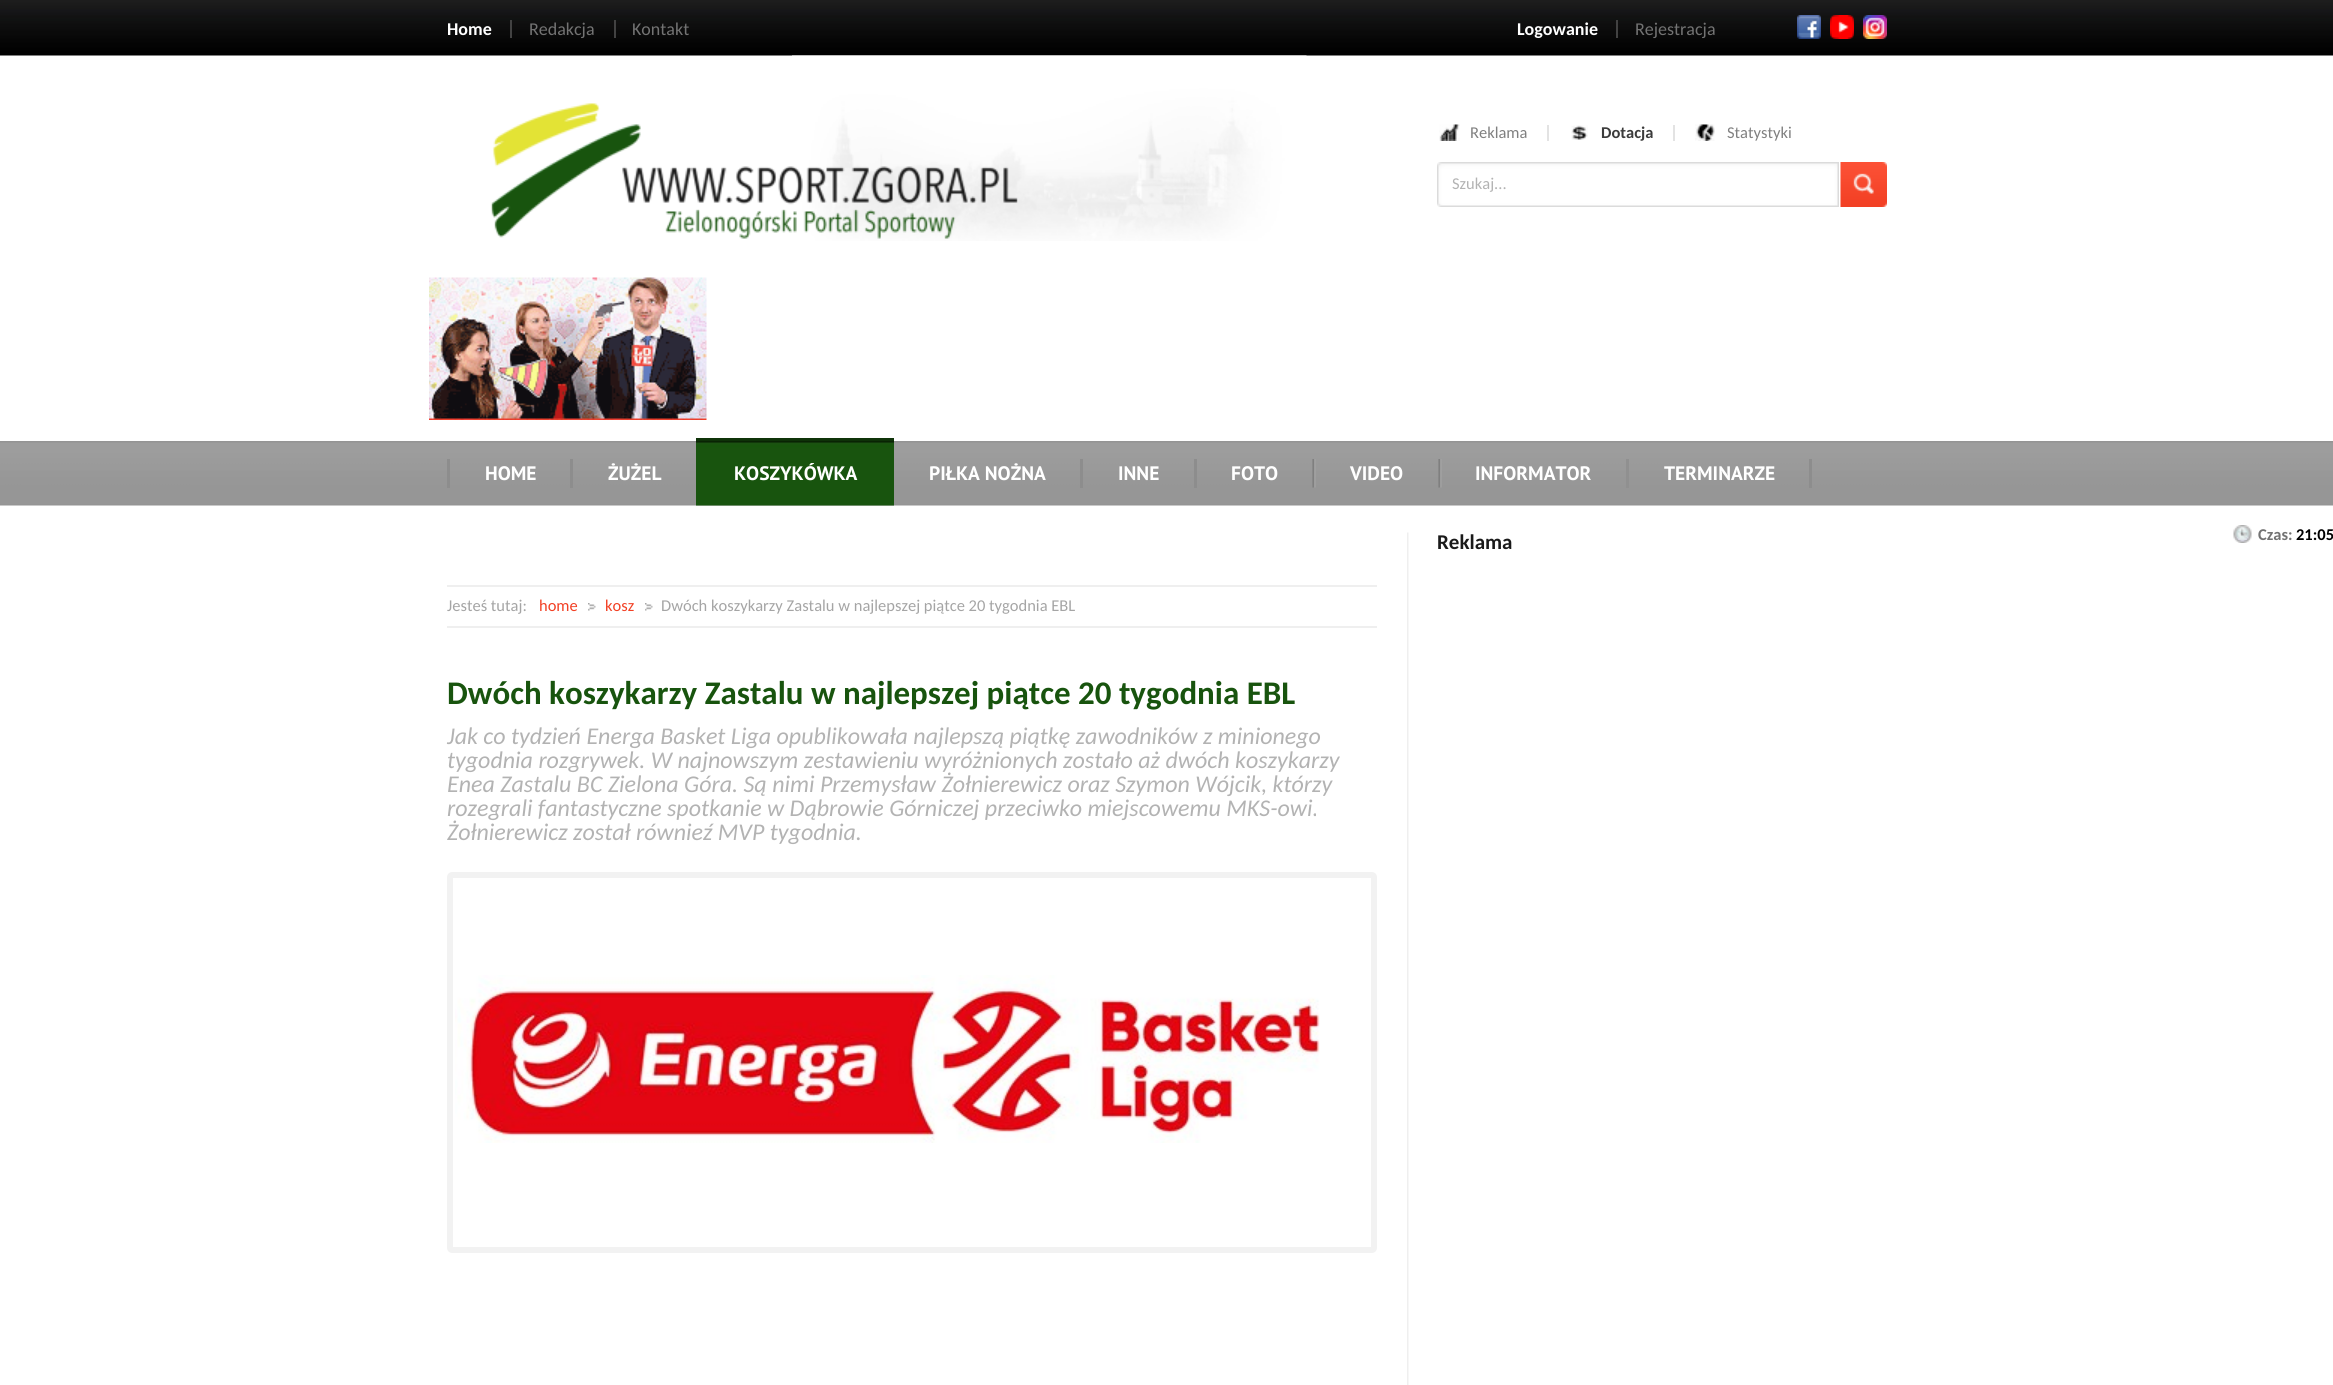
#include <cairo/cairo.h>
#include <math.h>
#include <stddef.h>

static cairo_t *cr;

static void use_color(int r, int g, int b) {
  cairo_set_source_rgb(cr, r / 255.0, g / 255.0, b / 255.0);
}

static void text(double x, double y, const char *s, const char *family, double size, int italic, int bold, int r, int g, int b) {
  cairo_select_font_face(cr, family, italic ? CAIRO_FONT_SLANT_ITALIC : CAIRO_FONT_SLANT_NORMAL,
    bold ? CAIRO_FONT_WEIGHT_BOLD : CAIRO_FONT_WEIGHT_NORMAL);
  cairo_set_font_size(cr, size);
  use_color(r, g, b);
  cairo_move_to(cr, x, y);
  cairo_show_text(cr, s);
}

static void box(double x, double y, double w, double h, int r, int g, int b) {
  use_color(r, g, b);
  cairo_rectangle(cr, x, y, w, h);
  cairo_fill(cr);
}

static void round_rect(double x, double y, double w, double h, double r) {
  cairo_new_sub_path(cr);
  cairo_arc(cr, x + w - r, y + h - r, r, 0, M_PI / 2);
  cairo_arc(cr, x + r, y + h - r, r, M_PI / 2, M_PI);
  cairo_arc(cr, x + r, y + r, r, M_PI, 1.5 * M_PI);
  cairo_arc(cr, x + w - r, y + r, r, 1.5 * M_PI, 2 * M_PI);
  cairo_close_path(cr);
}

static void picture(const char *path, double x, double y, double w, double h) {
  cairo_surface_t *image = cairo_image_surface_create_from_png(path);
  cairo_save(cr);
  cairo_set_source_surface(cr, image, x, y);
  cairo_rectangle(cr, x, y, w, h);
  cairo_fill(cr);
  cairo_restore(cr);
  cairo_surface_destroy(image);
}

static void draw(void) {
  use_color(255, 255, 255);
  cairo_paint(cr);
  picture("img_01.png", 0, 0, 2333, 56);
  box(510, 20, 2, 18, 66, 66, 66);
  box(614, 20, 2, 18, 66, 66, 66);
  box(1616, 20, 2, 18, 66, 66, 66);
  picture("img_02.png", 1797, 15, 24, 24);
  picture("img_03.png", 1830, 15, 24, 24);
  picture("img_04.png", 1863, 15, 24, 24);
  picture("img_05.png", 792, 55, 515, 186);
  picture("img_06.png", 490, 103, 528, 136);
  picture("img_07.png", 1439, 124, 21, 17);
  box(1547, 125, 2, 16, 227, 227, 227);
  picture("img_08.png", 1571, 125, 17, 15);
  box(1673, 125, 2, 16, 227, 227, 227);
  picture("img_09.png", 1695, 124, 20, 17);
  picture("img_10.png", 1437, 162, 402, 45);
  picture("img_11.png", 1840, 162, 47, 45);
  picture("img_12.png", 429, 277, 278, 143);
  picture("img_13.png", 0, 441, 2333, 65);
  box(1809, 459, 3, 29, 141, 141, 141);
  box(447, 459, 3, 29, 141, 141, 141);
  box(570, 459, 3, 29, 141, 141, 141);
  picture("img_14.png", 696, 438, 198, 68);
  box(1080, 459, 3, 29, 141, 141, 141);
  box(1194, 459, 3, 29, 141, 141, 141);
  picture("img_15.png", 1312, 459, 4, 29);
  picture("img_15.png", 1438, 459, 4, 29);
  box(1626, 459, 3, 29, 144, 144, 144);
  picture("img_16.png", 1407, 532, 2, 853);
  box(447, 585, 930, 2, 239, 239, 239);
  box(447, 626, 930, 2, 239, 239, 239);
  picture("img_17.png", 588, 603, 8, 8);
  picture("img_18.png", 645, 603, 8, 8);
  round_rect(450, 875, 924, 375, 2);
  use_color(242, 242, 242);
  cairo_set_line_width(cr, 6);
  cairo_stroke(cr);
  picture("img_19.png", 455, 975, 865, 168);
  picture("img_20.png", 2233, 525, 19, 18);
  text(447, 35, "Home", "Carlito", 18, 0, 1, 255, 255, 255);
  text(529, 35, "Redakcja", "Carlito", 18, 0, 0, 115, 115, 115);
  text(632, 35, "Kontakt", "Carlito", 18, 0, 0, 115, 115, 115);
  text(1517, 35, "Logowanie", "Carlito", 18, 0, 1, 255, 255, 255);
  text(1635, 35, "Rejestracja", "Carlito", 18, 0, 0, 115, 115, 115);
  text(1470, 138, "Reklama", "Carlito", 16.5, 0, 0, 128, 128, 128);
  text(1601, 138, "Dotacja", "Carlito", 16.5, 0, 1, 60, 60, 60);
  text(1727, 138, "Statystyki", "Carlito", 16.5, 0, 0, 128, 128, 128);
  text(1452, 189, "Szukaj...", "Carlito", 16.5, 0, 0, 179, 179, 179);
  text(485, 480, "HOME", "PT Sans", 19.5, 0, 1, 255, 255, 255);
  text(608, 480, "ŻUŻEL", "PT Sans", 19.5, 0, 1, 255, 255, 255);
  text(734, 480, "KOSZYKÓWKA", "PT Sans", 19.5, 0, 1, 255, 255, 255);
  text(929, 480, "PIŁKA NOŻNA", "PT Sans", 19.5, 0, 1, 255, 255, 255);
  text(1118, 480, "INNE", "PT Sans", 19.5, 0, 1, 255, 255, 255);
  text(1231, 480, "FOTO", "PT Sans", 19.5, 0, 1, 255, 255, 255);
  text(1350, 480, "VIDEO", "PT Sans", 19.5, 0, 1, 255, 255, 255);
  text(1475, 480, "INFORMATOR", "PT Sans", 19.5, 0, 1, 255, 255, 255);
  text(1664, 480, "TERMINARZE", "PT Sans", 19.5, 0, 1, 255, 255, 255);
  text(1437, 549, "Reklama", "Carlito", 21, 0, 1, 26, 26, 26);
  text(447, 611, "Jesteś tutaj:", "Carlito", 16.5, 0, 0, 165, 165, 165);
  text(539, 611, "home", "Carlito", 16.5, 0, 0, 242, 64, 36);
  text(605, 611, "kosz", "Carlito", 16.5, 0, 0, 242, 64, 36);
  text(661, 611, "Dwóch koszykarzy Zastalu w najlepszej piątce 20 tygodnia EBL", "Carlito", 16.5, 0, 0, 165, 165, 165);
  text(447, 704, "Dwóch koszykarzy Zastalu w najlepszej piątce 20 tygodnia EBL", "Carlito", 33, 0, 1, 24, 84, 14);
  text(447, 744, "Jak co tydzień Energa Basket Liga opublikowała najlepszą piątkę zawodników z minionego", "Carlito", 24, 1, 0, 179, 179, 179);
  text(447, 768, "tygodnia rozgrywek. W najnowszym zestawieniu wyróżnionych zostało aż dwóch koszykarzy", "Carlito", 24, 1, 0, 179, 179, 179);
  text(447, 792, "Enea Zastalu BC Zielona Góra. Są nimi Przemysław Żołnierewicz oraz Szymon Wójcik, którzy", "Carlito", 24, 1, 0, 179, 179, 179);
  text(447, 816, "rozegrali fantastyczne spotkanie w Dąbrowie Górniczej przeciwko miejscowemu MKS-owi.", "Carlito", 24, 1, 0, 179, 179, 179);
  text(447, 840, "Żołnierewicz został równieź MVP tygodnia.", "Carlito", 24, 1, 0, 179, 179, 179);
  text(2258, 540, "Czas:", "Carlito", 16.5, 0, 1, 115, 115, 115);
  text(2296, 540, "21:05", "Carlito", 16.5, 0, 1, 0, 0, 0);
}

int main(void) {
  cairo_surface_t *surface = cairo_image_surface_create(CAIRO_FORMAT_RGB24, 2333, 1385);
  cr = cairo_create(surface);
  cairo_font_options_t *options = cairo_font_options_create();
  cairo_font_options_set_hint_metrics(options, CAIRO_HINT_METRICS_OFF);
  cairo_font_options_set_hint_style(options, CAIRO_HINT_STYLE_NONE);
  cairo_set_font_options(cr, options);
  cairo_set_miter_limit(cr, 4);
  draw();
  cairo_surface_write_to_png(surface, "out.png");
  cairo_font_options_destroy(options);
  cairo_destroy(cr);
  cairo_surface_destroy(surface);
  return 0;
}
